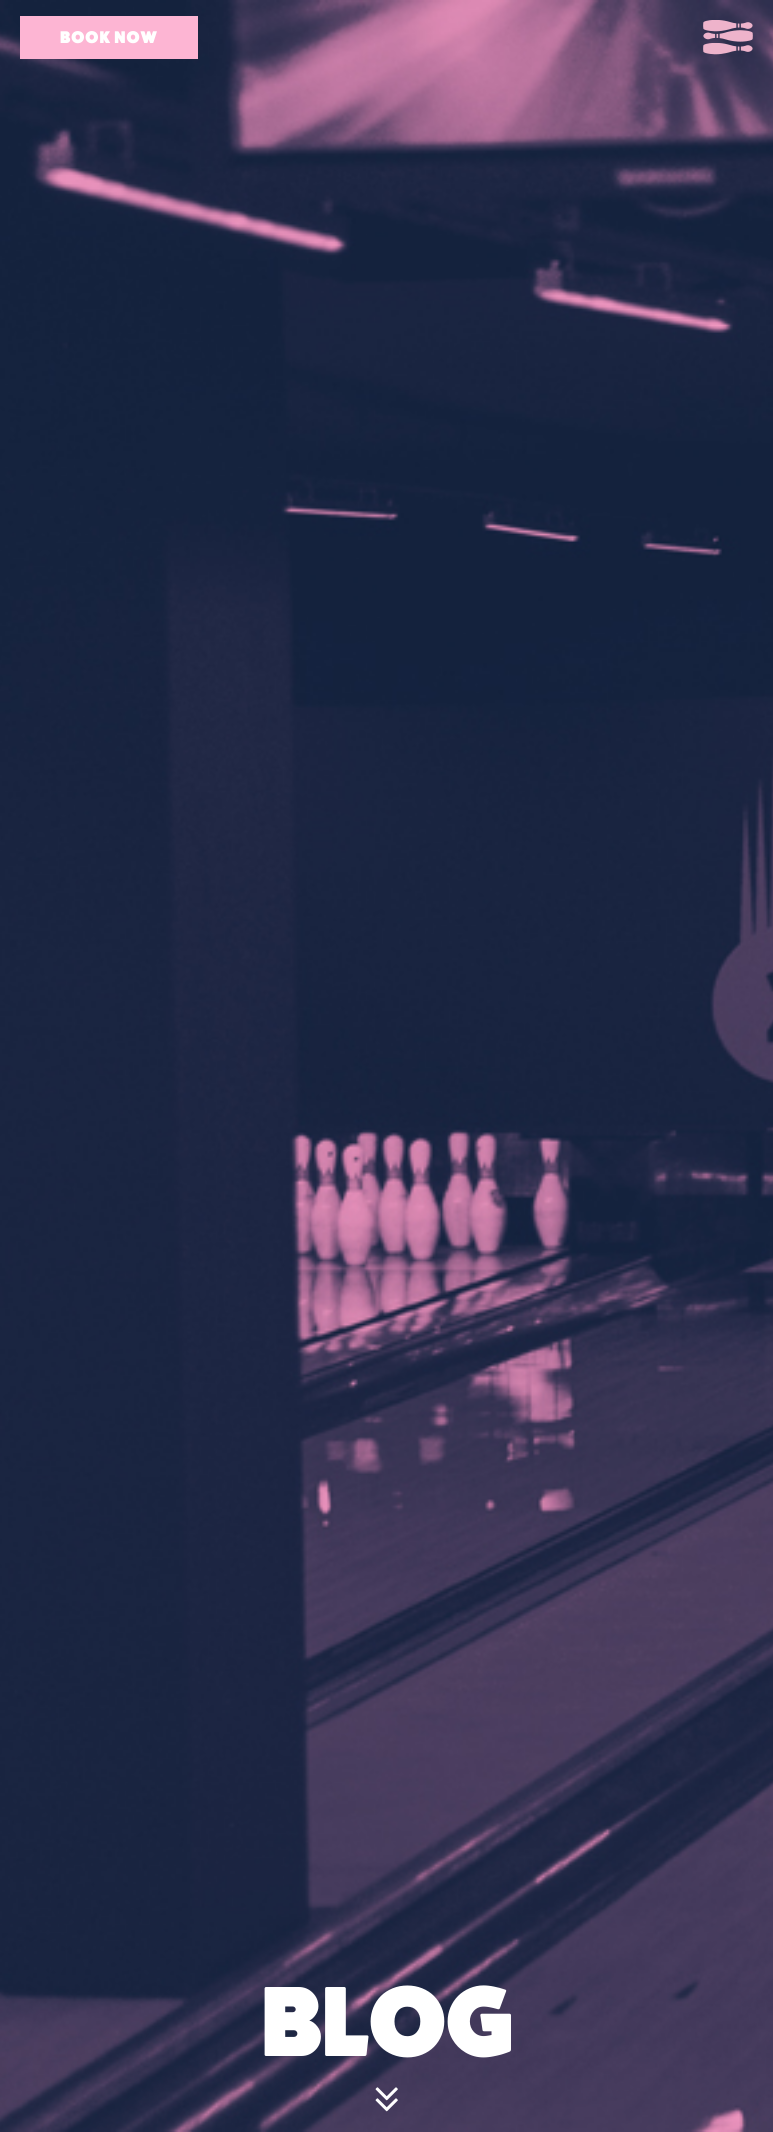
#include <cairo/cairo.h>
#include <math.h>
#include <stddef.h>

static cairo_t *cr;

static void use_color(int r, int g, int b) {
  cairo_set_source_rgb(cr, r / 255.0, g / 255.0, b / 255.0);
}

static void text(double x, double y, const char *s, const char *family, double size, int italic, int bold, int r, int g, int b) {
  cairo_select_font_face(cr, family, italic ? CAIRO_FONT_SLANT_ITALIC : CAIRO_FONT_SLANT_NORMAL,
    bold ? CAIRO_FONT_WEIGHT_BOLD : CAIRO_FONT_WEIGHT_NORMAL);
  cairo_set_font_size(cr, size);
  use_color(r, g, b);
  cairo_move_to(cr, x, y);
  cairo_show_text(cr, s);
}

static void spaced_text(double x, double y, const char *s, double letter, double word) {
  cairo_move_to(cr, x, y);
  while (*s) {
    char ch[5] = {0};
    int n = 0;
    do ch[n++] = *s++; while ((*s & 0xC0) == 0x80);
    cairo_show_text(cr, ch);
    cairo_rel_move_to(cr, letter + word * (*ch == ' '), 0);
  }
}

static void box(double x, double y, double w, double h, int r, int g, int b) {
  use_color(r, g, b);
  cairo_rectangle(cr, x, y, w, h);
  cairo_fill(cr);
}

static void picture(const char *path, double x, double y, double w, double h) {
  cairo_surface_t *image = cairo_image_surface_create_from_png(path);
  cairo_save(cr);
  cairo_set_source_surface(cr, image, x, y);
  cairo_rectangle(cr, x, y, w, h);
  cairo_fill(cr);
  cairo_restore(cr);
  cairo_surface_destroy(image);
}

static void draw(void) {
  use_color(255, 255, 255);
  cairo_paint(cr);
  picture("img_04.png", 0, 0, 773, 2132);
  box(20, 16, 178, 43, 253, 181, 211);
  picture("img_01.png", 703, 20, 50, 12);
  picture("img_02.png", 703, 30, 50, 12);
  picture("img_03.png", 703, 43, 50, 12);
  picture("img_05.png", 375, 2087, 23, 14);
  picture("img_06.png", 375, 2098, 23, 14);
  cairo_select_font_face(cr, "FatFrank", CAIRO_FONT_SLANT_NORMAL, CAIRO_FONT_WEIGHT_NORMAL);
  cairo_set_font_size(cr, 17);
  use_color(255, 255, 255);
  spaced_text(60, 43, "BOOK NOW", 1, 0);
  text(261, 2056, "BLOG", "FatFrank", 100, 0, 0, 255, 255, 255);
}

int main(void) {
  cairo_surface_t *surface = cairo_image_surface_create(CAIRO_FORMAT_RGB24, 773, 2132);
  cr = cairo_create(surface);
  cairo_font_options_t *options = cairo_font_options_create();
  cairo_font_options_set_hint_metrics(options, CAIRO_HINT_METRICS_OFF);
  cairo_font_options_set_hint_style(options, CAIRO_HINT_STYLE_NONE);
  cairo_set_font_options(cr, options);
  cairo_set_miter_limit(cr, 4);
  draw();
  cairo_surface_write_to_png(surface, "out.png");
  cairo_font_options_destroy(options);
  cairo_destroy(cr);
  cairo_surface_destroy(surface);
  return 0;
}
